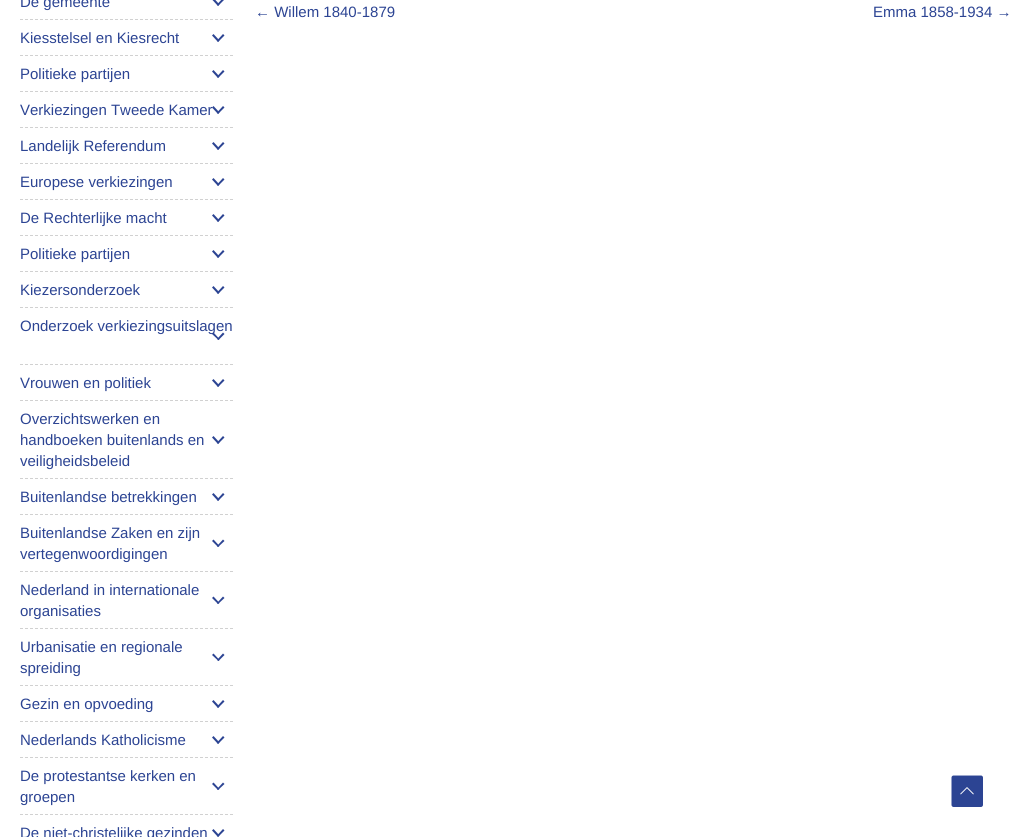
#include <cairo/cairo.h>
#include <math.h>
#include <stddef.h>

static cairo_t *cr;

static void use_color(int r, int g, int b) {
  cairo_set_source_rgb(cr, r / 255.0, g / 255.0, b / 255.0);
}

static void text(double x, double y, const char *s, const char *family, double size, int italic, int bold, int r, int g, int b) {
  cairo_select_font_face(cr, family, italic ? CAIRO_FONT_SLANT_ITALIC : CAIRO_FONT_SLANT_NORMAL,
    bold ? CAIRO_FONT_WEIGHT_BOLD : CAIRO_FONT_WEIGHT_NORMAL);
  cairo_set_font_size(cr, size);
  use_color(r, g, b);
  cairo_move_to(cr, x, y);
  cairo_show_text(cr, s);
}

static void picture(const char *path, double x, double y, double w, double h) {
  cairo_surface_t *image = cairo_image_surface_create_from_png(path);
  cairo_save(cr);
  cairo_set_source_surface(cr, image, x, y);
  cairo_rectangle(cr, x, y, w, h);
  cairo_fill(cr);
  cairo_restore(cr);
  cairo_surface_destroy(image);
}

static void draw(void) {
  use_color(255, 255, 255);
  cairo_paint(cr);
  cairo_new_path(cr);
  cairo_move_to(cr, 20, 19.5);
  cairo_line_to(cr, 233, 19.5);
  use_color(209, 209, 209);
  cairo_set_line_width(cr, 1);
  cairo_set_dash(cr, (double[]){3, 2}, 2, 0);
  cairo_stroke(cr);
  use_color(44, 68, 147);
  cairo_new_path(cr);
  cairo_move_to(cr, 223, -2);
  cairo_line_to(cr, 224.5, -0.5);
  cairo_line_to(cr, 218, 6);
  cairo_line_to(cr, 217, 4.5);
  cairo_close_path(cr);
  cairo_fill(cr);
  cairo_new_path(cr);
  cairo_move_to(cr, 213.5, -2);
  cairo_line_to(cr, 219.5, 4.5);
  cairo_line_to(cr, 218, 6);
  cairo_line_to(cr, 212, -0.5);
  cairo_close_path(cr);
  cairo_move_to(cr, 223, 34);
  cairo_line_to(cr, 224.5, 35.5);
  cairo_line_to(cr, 218, 42);
  cairo_line_to(cr, 217, 40.5);
  cairo_close_path(cr);
  cairo_fill(cr);
  cairo_new_path(cr);
  cairo_move_to(cr, 20, 55.5);
  cairo_line_to(cr, 233, 55.5);
  use_color(209, 209, 209);
  cairo_stroke(cr);
  use_color(44, 68, 147);
  cairo_new_path(cr);
  cairo_move_to(cr, 213.5, 34);
  cairo_line_to(cr, 219.5, 40.5);
  cairo_line_to(cr, 218, 42);
  cairo_line_to(cr, 212, 35.5);
  cairo_close_path(cr);
  cairo_move_to(cr, 223, 70);
  cairo_line_to(cr, 224.5, 71.5);
  cairo_line_to(cr, 218, 78);
  cairo_line_to(cr, 217, 76.5);
  cairo_close_path(cr);
  cairo_fill(cr);
  cairo_new_path(cr);
  cairo_move_to(cr, 20, 91.5);
  cairo_line_to(cr, 233, 91.5);
  use_color(209, 209, 209);
  cairo_stroke(cr);
  use_color(44, 68, 147);
  cairo_new_path(cr);
  cairo_move_to(cr, 213.5, 70);
  cairo_line_to(cr, 219.5, 76.5);
  cairo_line_to(cr, 218, 78);
  cairo_line_to(cr, 212, 71.5);
  cairo_close_path(cr);
  cairo_move_to(cr, 223, 106);
  cairo_line_to(cr, 224.5, 107.5);
  cairo_line_to(cr, 218, 114);
  cairo_line_to(cr, 217, 112.5);
  cairo_close_path(cr);
  cairo_fill(cr);
  cairo_new_path(cr);
  cairo_move_to(cr, 20, 127.5);
  cairo_line_to(cr, 233, 127.5);
  use_color(209, 209, 209);
  cairo_stroke(cr);
  use_color(44, 68, 147);
  cairo_new_path(cr);
  cairo_move_to(cr, 213.5, 106);
  cairo_line_to(cr, 219.5, 112.5);
  cairo_line_to(cr, 218, 114);
  cairo_line_to(cr, 212, 107.5);
  cairo_close_path(cr);
  cairo_move_to(cr, 223, 142);
  cairo_line_to(cr, 224.5, 143.5);
  cairo_line_to(cr, 218, 150);
  cairo_line_to(cr, 217, 148.5);
  cairo_close_path(cr);
  cairo_fill(cr);
  cairo_new_path(cr);
  cairo_move_to(cr, 20, 163.5);
  cairo_line_to(cr, 233, 163.5);
  use_color(209, 209, 209);
  cairo_stroke(cr);
  use_color(44, 68, 147);
  cairo_new_path(cr);
  cairo_move_to(cr, 213.5, 142);
  cairo_line_to(cr, 219.5, 148.5);
  cairo_line_to(cr, 218, 150);
  cairo_line_to(cr, 212, 143.5);
  cairo_close_path(cr);
  cairo_move_to(cr, 223, 178);
  cairo_line_to(cr, 224.5, 179.5);
  cairo_line_to(cr, 218, 186);
  cairo_line_to(cr, 217, 184.5);
  cairo_close_path(cr);
  cairo_fill(cr);
  cairo_new_path(cr);
  cairo_move_to(cr, 20, 199.5);
  cairo_line_to(cr, 233, 199.5);
  use_color(209, 209, 209);
  cairo_stroke(cr);
  use_color(44, 68, 147);
  cairo_new_path(cr);
  cairo_move_to(cr, 213.5, 178);
  cairo_line_to(cr, 219.5, 184.5);
  cairo_line_to(cr, 218, 186);
  cairo_line_to(cr, 212, 179.5);
  cairo_close_path(cr);
  cairo_move_to(cr, 223, 214);
  cairo_line_to(cr, 224.5, 215.5);
  cairo_line_to(cr, 218, 222);
  cairo_line_to(cr, 217, 220.5);
  cairo_close_path(cr);
  cairo_fill(cr);
  cairo_new_path(cr);
  cairo_move_to(cr, 20, 235.5);
  cairo_line_to(cr, 233, 235.5);
  use_color(209, 209, 209);
  cairo_stroke(cr);
  use_color(44, 68, 147);
  cairo_new_path(cr);
  cairo_move_to(cr, 213.5, 214);
  cairo_line_to(cr, 219.5, 220.5);
  cairo_line_to(cr, 218, 222);
  cairo_line_to(cr, 212, 215.5);
  cairo_close_path(cr);
  cairo_move_to(cr, 223, 250);
  cairo_line_to(cr, 224.5, 251.5);
  cairo_line_to(cr, 218, 258);
  cairo_line_to(cr, 217, 256.5);
  cairo_close_path(cr);
  cairo_fill(cr);
  cairo_new_path(cr);
  cairo_move_to(cr, 20, 271.5);
  cairo_line_to(cr, 233, 271.5);
  use_color(209, 209, 209);
  cairo_stroke(cr);
  use_color(44, 68, 147);
  cairo_new_path(cr);
  cairo_move_to(cr, 213.5, 250);
  cairo_line_to(cr, 219.5, 256.5);
  cairo_line_to(cr, 218, 258);
  cairo_line_to(cr, 212, 251.5);
  cairo_close_path(cr);
  cairo_move_to(cr, 223, 286);
  cairo_line_to(cr, 224.5, 287.5);
  cairo_line_to(cr, 218, 294);
  cairo_line_to(cr, 217, 292.5);
  cairo_close_path(cr);
  cairo_fill(cr);
  cairo_new_path(cr);
  cairo_move_to(cr, 20, 307.5);
  cairo_line_to(cr, 233, 307.5);
  use_color(209, 209, 209);
  cairo_stroke(cr);
  use_color(44, 68, 147);
  cairo_new_path(cr);
  cairo_move_to(cr, 213.5, 286);
  cairo_line_to(cr, 219.5, 292.5);
  cairo_line_to(cr, 218, 294);
  cairo_line_to(cr, 212, 287.5);
  cairo_close_path(cr);
  cairo_move_to(cr, 223, 332.5);
  cairo_line_to(cr, 224.5, 334);
  cairo_line_to(cr, 218.5, 340);
  cairo_line_to(cr, 217, 339);
  cairo_close_path(cr);
  cairo_fill(cr);
  cairo_new_path(cr);
  cairo_move_to(cr, 20, 364.5);
  cairo_line_to(cr, 233, 364.5);
  use_color(209, 209, 209);
  cairo_stroke(cr);
  use_color(44, 68, 147);
  cairo_new_path(cr);
  cairo_move_to(cr, 213.5, 332.5);
  cairo_line_to(cr, 219.5, 339);
  cairo_line_to(cr, 218.5, 340);
  cairo_line_to(cr, 212, 334);
  cairo_close_path(cr);
  cairo_move_to(cr, 223, 379);
  cairo_line_to(cr, 224.5, 380.5);
  cairo_line_to(cr, 218, 387);
  cairo_line_to(cr, 217, 385.5);
  cairo_close_path(cr);
  cairo_fill(cr);
  cairo_new_path(cr);
  cairo_move_to(cr, 20, 400.5);
  cairo_line_to(cr, 233, 400.5);
  use_color(209, 209, 209);
  cairo_stroke(cr);
  use_color(44, 68, 147);
  cairo_new_path(cr);
  cairo_move_to(cr, 213.5, 379);
  cairo_line_to(cr, 219.5, 385.5);
  cairo_line_to(cr, 218, 387);
  cairo_line_to(cr, 212, 380.5);
  cairo_close_path(cr);
  cairo_fill(cr);
  cairo_new_path(cr);
  cairo_move_to(cr, 20, 478.5);
  cairo_line_to(cr, 233, 478.5);
  use_color(209, 209, 209);
  cairo_stroke(cr);
  use_color(44, 68, 147);
  cairo_new_path(cr);
  cairo_move_to(cr, 223, 436);
  cairo_line_to(cr, 224.5, 437.5);
  cairo_line_to(cr, 218, 444);
  cairo_line_to(cr, 217, 442.5);
  cairo_close_path(cr);
  cairo_fill(cr);
  cairo_new_path(cr);
  cairo_move_to(cr, 213.5, 436);
  cairo_line_to(cr, 219.5, 442.5);
  cairo_line_to(cr, 218, 444);
  cairo_line_to(cr, 212, 437.5);
  cairo_close_path(cr);
  cairo_fill(cr);
  cairo_new_path(cr);
  cairo_move_to(cr, 20, 514.5);
  cairo_line_to(cr, 233, 514.5);
  use_color(209, 209, 209);
  cairo_stroke(cr);
  use_color(44, 68, 147);
  cairo_new_path(cr);
  cairo_move_to(cr, 223, 493);
  cairo_line_to(cr, 224.5, 494.5);
  cairo_line_to(cr, 218, 501);
  cairo_line_to(cr, 217, 499.5);
  cairo_close_path(cr);
  cairo_fill(cr);
  cairo_new_path(cr);
  cairo_move_to(cr, 213.5, 493);
  cairo_line_to(cr, 219.5, 499.5);
  cairo_line_to(cr, 218, 501);
  cairo_line_to(cr, 212, 494.5);
  cairo_close_path(cr);
  cairo_move_to(cr, 223, 539.5);
  cairo_line_to(cr, 224.5, 541);
  cairo_line_to(cr, 218, 547);
  cairo_line_to(cr, 217, 546);
  cairo_close_path(cr);
  cairo_fill(cr);
  cairo_new_path(cr);
  cairo_move_to(cr, 20, 571.5);
  cairo_line_to(cr, 233, 571.5);
  use_color(209, 209, 209);
  cairo_stroke(cr);
  use_color(44, 68, 147);
  cairo_new_path(cr);
  cairo_move_to(cr, 213.5, 539.5);
  cairo_line_to(cr, 219.5, 546);
  cairo_line_to(cr, 218, 547);
  cairo_line_to(cr, 212, 541);
  cairo_close_path(cr);
  cairo_fill(cr);
  cairo_new_path(cr);
  cairo_move_to(cr, 20, 628.5);
  cairo_line_to(cr, 233, 628.5);
  use_color(209, 209, 209);
  cairo_stroke(cr);
  use_color(44, 68, 147);
  cairo_new_path(cr);
  cairo_move_to(cr, 223, 596.5);
  cairo_line_to(cr, 224.5, 598);
  cairo_line_to(cr, 218, 604);
  cairo_line_to(cr, 217, 603);
  cairo_close_path(cr);
  cairo_fill(cr);
  cairo_new_path(cr);
  cairo_move_to(cr, 213.5, 596.5);
  cairo_line_to(cr, 219.5, 603);
  cairo_line_to(cr, 218, 604);
  cairo_line_to(cr, 212, 598);
  cairo_close_path(cr);
  cairo_fill(cr);
  cairo_new_path(cr);
  cairo_move_to(cr, 20, 685.5);
  cairo_line_to(cr, 233, 685.5);
  use_color(209, 209, 209);
  cairo_stroke(cr);
  use_color(44, 68, 147);
  cairo_new_path(cr);
  cairo_move_to(cr, 223, 653.5);
  cairo_line_to(cr, 224.5, 655);
  cairo_line_to(cr, 218.5, 661);
  cairo_line_to(cr, 217, 660);
  cairo_close_path(cr);
  cairo_fill(cr);
  cairo_new_path(cr);
  cairo_move_to(cr, 213.5, 653.5);
  cairo_line_to(cr, 219.5, 660);
  cairo_line_to(cr, 218.5, 661);
  cairo_line_to(cr, 212, 655);
  cairo_close_path(cr);
  cairo_move_to(cr, 223, 700);
  cairo_line_to(cr, 224.5, 701.5);
  cairo_line_to(cr, 218, 708);
  cairo_line_to(cr, 217, 706.5);
  cairo_close_path(cr);
  cairo_fill(cr);
  cairo_new_path(cr);
  cairo_move_to(cr, 20, 721.5);
  cairo_line_to(cr, 233, 721.5);
  use_color(209, 209, 209);
  cairo_stroke(cr);
  use_color(44, 68, 147);
  cairo_new_path(cr);
  cairo_move_to(cr, 213.5, 700);
  cairo_line_to(cr, 219.5, 706.5);
  cairo_line_to(cr, 218, 708);
  cairo_line_to(cr, 212, 701.5);
  cairo_close_path(cr);
  cairo_move_to(cr, 223, 736);
  cairo_line_to(cr, 224.5, 737.5);
  cairo_line_to(cr, 218, 744);
  cairo_line_to(cr, 217, 742.5);
  cairo_close_path(cr);
  cairo_fill(cr);
  cairo_new_path(cr);
  cairo_move_to(cr, 20, 757.5);
  cairo_line_to(cr, 233, 757.5);
  use_color(209, 209, 209);
  cairo_stroke(cr);
  use_color(44, 68, 147);
  cairo_new_path(cr);
  cairo_move_to(cr, 213.5, 736);
  cairo_line_to(cr, 219.5, 742.5);
  cairo_line_to(cr, 218, 744);
  cairo_line_to(cr, 212, 737.5);
  cairo_close_path(cr);
  cairo_move_to(cr, 223, 782.5);
  cairo_line_to(cr, 224.5, 784);
  cairo_line_to(cr, 218, 790);
  cairo_line_to(cr, 217, 789);
  cairo_close_path(cr);
  cairo_fill(cr);
  cairo_new_path(cr);
  cairo_move_to(cr, 20, 814.5);
  cairo_line_to(cr, 233, 814.5);
  use_color(209, 209, 209);
  cairo_stroke(cr);
  use_color(44, 68, 147);
  cairo_new_path(cr);
  cairo_move_to(cr, 213.5, 782.5);
  cairo_line_to(cr, 219.5, 789);
  cairo_line_to(cr, 218, 790);
  cairo_line_to(cr, 212, 784);
  cairo_close_path(cr);
  cairo_move_to(cr, 223, 829);
  cairo_line_to(cr, 224.5, 830.5);
  cairo_line_to(cr, 218, 837);
  cairo_line_to(cr, 217, 835.5);
  cairo_close_path(cr);
  cairo_fill(cr);
  cairo_new_path(cr);
  cairo_move_to(cr, 213.5, 829);
  cairo_line_to(cr, 219.5, 835.5);
  cairo_line_to(cr, 218, 837);
  cairo_line_to(cr, 212, 830.5);
  cairo_close_path(cr);
  cairo_fill(cr);
  cairo_new_path(cr);
  cairo_move_to(cr, 981, 807);
  cairo_line_to(cr, 953.5, 807);
  cairo_curve_to(cr, 952.5, 807, 951.5, 806, 951.5, 805);
  cairo_line_to(cr, 951.5, 777.5);
  cairo_curve_to(cr, 951.5, 776.5, 952.5, 775.5, 953.5, 775.5);
  cairo_line_to(cr, 981, 775.5);
  cairo_curve_to(cr, 982, 775.5, 983, 776.5, 983, 777.5);
  cairo_line_to(cr, 983, 805);
  cairo_curve_to(cr, 983, 806, 982, 807, 981, 807);
  cairo_close_path(cr);
  cairo_fill(cr);
  picture("img_01.png", 960, 787, 14, 8);
  text(20, 7, "De gemeente", "Liberation Sans", 15, 0, 0, 44, 68, 147);
  text(20, 43, "Kiesstelsel en Kiesrecht", "Liberation Sans", 15, 0, 0, 44, 68, 147);
  text(20, 79, "Politieke partijen", "Liberation Sans", 15, 0, 0, 44, 68, 147);
  text(20, 115, "Verkiezingen Tweede Kamer", "Liberation Sans", 15, 0, 0, 44, 68, 147);
  text(20, 151, "Landelijk Referendum", "Liberation Sans", 15, 0, 0, 44, 68, 147);
  text(20, 187, "Europese verkiezingen", "Liberation Sans", 15, 0, 0, 44, 68, 147);
  text(20, 223, "De Rechterlijke macht", "Liberation Sans", 15, 0, 0, 44, 68, 147);
  text(20, 259, "Politieke partijen", "Liberation Sans", 15, 0, 0, 44, 68, 147);
  text(20, 295, "Kiezersonderzoek", "Liberation Sans", 15, 0, 0, 44, 68, 147);
  text(20, 331, "Onderzoek verkiezingsuitslagen", "Liberation Sans", 15, 0, 0, 44, 68, 147);
  text(20, 388, "Vrouwen en politiek", "Liberation Sans", 15, 0, 0, 44, 68, 147);
  text(20, 424, "Overzichtswerken en", "Liberation Sans", 15, 0, 0, 44, 68, 147);
  text(20, 445, "handboeken buitenlands en", "Liberation Sans", 15, 0, 0, 44, 68, 147);
  text(20, 466, "veiligheidsbeleid", "Liberation Sans", 15, 0, 0, 44, 68, 147);
  text(20, 502, "Buitenlandse betrekkingen", "Liberation Sans", 15, 0, 0, 44, 68, 147);
  text(20, 538, "Buitenlandse Zaken en zijn", "Liberation Sans", 15, 0, 0, 44, 68, 147);
  text(20, 559, "vertegenwoordigingen", "Liberation Sans", 15, 0, 0, 44, 68, 147);
  text(20, 595, "Nederland in internationale", "Liberation Sans", 15, 0, 0, 44, 68, 147);
  text(20, 616, "organisaties", "Liberation Sans", 15, 0, 0, 44, 68, 147);
  text(20, 652, "Urbanisatie en regionale", "Liberation Sans", 15, 0, 0, 44, 68, 147);
  text(20, 673, "spreiding", "Liberation Sans", 15, 0, 0, 44, 68, 147);
  text(20, 709, "Gezin en opvoeding", "Liberation Sans", 15, 0, 0, 44, 68, 147);
  text(20, 745, "Nederlands Katholicisme", "Liberation Sans", 15, 0, 0, 44, 68, 147);
  text(20, 781, "De protestantse kerken en", "Liberation Sans", 15, 0, 0, 44, 68, 147);
  text(20, 802, "groepen", "Liberation Sans", 15, 0, 0, 44, 68, 147);
  text(20, 838, "De niet-christelijke gezinden", "Liberation Sans", 15, 0, 0, 44, 68, 147);
  text(255, 17, "← Willem 1840-1879", "Liberation Sans", 15, 0, 0, 44, 68, 147);
  text(873, 17, "Emma 1858-1934 →", "Liberation Sans", 15, 0, 0, 44, 68, 147);
}

int main(void) {
  cairo_surface_t *surface = cairo_image_surface_create(CAIRO_FORMAT_RGB24, 1013, 837);
  cr = cairo_create(surface);
  cairo_font_options_t *options = cairo_font_options_create();
  cairo_font_options_set_hint_metrics(options, CAIRO_HINT_METRICS_OFF);
  cairo_font_options_set_hint_style(options, CAIRO_HINT_STYLE_NONE);
  cairo_set_font_options(cr, options);
  cairo_set_miter_limit(cr, 4);
  draw();
  cairo_surface_write_to_png(surface, "out.png");
  cairo_font_options_destroy(options);
  cairo_destroy(cr);
  cairo_surface_destroy(surface);
  return 0;
}
